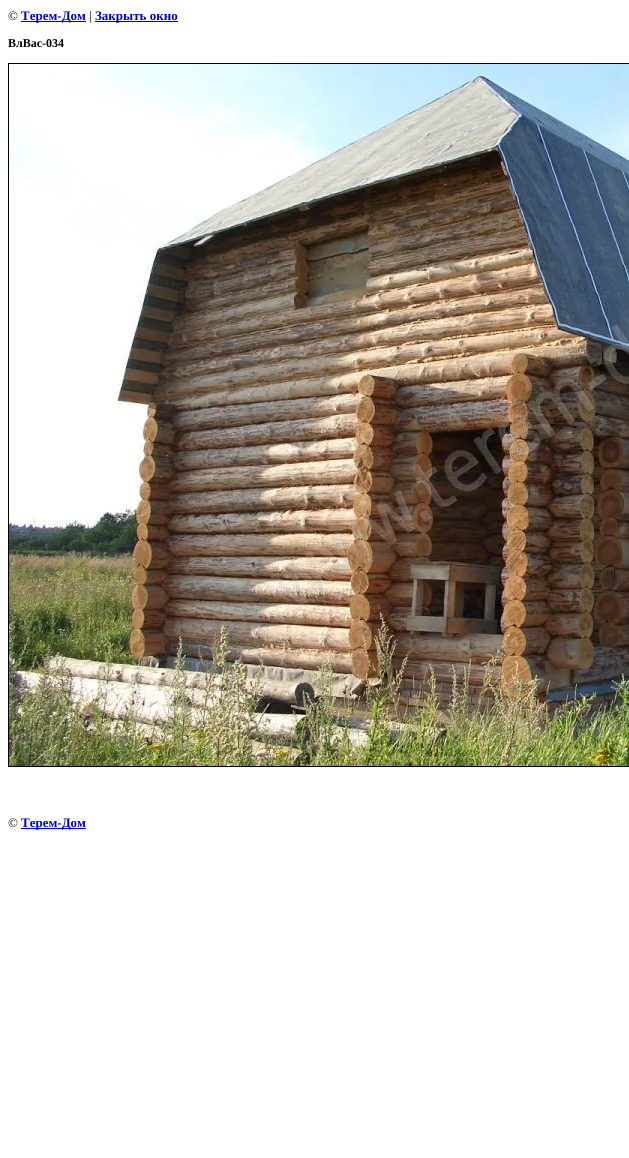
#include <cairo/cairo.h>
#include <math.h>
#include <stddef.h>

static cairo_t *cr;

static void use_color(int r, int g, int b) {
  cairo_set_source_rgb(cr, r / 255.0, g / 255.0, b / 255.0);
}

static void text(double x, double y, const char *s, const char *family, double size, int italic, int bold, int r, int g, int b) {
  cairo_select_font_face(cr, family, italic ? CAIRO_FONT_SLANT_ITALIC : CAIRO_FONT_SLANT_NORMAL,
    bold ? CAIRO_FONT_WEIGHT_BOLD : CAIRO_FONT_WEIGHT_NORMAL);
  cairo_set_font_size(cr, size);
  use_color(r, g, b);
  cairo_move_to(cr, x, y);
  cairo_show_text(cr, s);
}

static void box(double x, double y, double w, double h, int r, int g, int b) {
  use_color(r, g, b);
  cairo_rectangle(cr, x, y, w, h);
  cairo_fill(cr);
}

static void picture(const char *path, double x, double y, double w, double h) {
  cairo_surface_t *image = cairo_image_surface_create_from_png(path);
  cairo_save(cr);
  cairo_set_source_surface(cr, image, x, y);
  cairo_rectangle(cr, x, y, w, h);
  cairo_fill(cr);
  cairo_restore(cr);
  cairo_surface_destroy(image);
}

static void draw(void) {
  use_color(255, 255, 255);
  cairo_paint(cr);
  box(21, 21, 65, 1, 0, 0, 204);
  box(95, 21, 83, 1, 0, 0, 204);
  cairo_rectangle(cr, 8.5, 63.5, 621, 703);
  use_color(0, 0, 0);
  cairo_set_line_width(cr, 1);
  cairo_stroke(cr);
  picture("img_01.png", 9, 64, 620, 702);
  box(21, 828, 65, 1, 0, 0, 204);
  text(8, 20, "©", "Liberation Serif", 13, 0, 0, 0, 0, 0);
  text(21, 20, "Терем-Дом", "Liberation Serif", 13, 0, 1, 0, 0, 204);
  text(89, 20, "|", "Liberation Serif", 13, 0, 0, 0, 0, 0);
  text(95, 20, "Закрыть окно", "Liberation Serif", 13, 0, 1, 0, 0, 204);
  text(8, 47, "ВлВас-034", "Liberation Serif", 12, 0, 1, 0, 0, 0);
  text(8, 827, "©", "Liberation Serif", 13, 0, 0, 0, 0, 0);
  text(21, 827, "Терем-Дом", "Liberation Serif", 13, 0, 1, 0, 0, 204);
}

int main(void) {
  cairo_surface_t *surface = cairo_image_surface_create(CAIRO_FORMAT_RGB24, 629, 1158);
  cr = cairo_create(surface);
  cairo_font_options_t *options = cairo_font_options_create();
  cairo_font_options_set_hint_metrics(options, CAIRO_HINT_METRICS_OFF);
  cairo_font_options_set_hint_style(options, CAIRO_HINT_STYLE_NONE);
  cairo_set_font_options(cr, options);
  cairo_set_miter_limit(cr, 4);
  draw();
  cairo_surface_write_to_png(surface, "out.png");
  cairo_font_options_destroy(options);
  cairo_destroy(cr);
  cairo_surface_destroy(surface);
  return 0;
}
